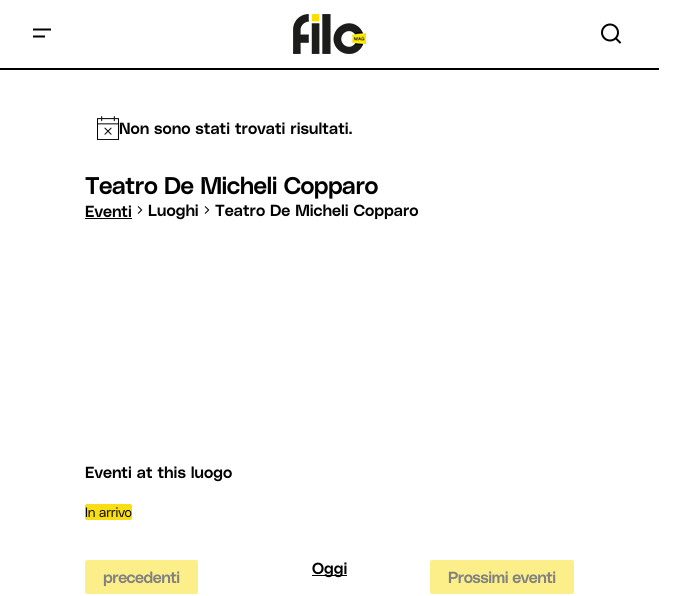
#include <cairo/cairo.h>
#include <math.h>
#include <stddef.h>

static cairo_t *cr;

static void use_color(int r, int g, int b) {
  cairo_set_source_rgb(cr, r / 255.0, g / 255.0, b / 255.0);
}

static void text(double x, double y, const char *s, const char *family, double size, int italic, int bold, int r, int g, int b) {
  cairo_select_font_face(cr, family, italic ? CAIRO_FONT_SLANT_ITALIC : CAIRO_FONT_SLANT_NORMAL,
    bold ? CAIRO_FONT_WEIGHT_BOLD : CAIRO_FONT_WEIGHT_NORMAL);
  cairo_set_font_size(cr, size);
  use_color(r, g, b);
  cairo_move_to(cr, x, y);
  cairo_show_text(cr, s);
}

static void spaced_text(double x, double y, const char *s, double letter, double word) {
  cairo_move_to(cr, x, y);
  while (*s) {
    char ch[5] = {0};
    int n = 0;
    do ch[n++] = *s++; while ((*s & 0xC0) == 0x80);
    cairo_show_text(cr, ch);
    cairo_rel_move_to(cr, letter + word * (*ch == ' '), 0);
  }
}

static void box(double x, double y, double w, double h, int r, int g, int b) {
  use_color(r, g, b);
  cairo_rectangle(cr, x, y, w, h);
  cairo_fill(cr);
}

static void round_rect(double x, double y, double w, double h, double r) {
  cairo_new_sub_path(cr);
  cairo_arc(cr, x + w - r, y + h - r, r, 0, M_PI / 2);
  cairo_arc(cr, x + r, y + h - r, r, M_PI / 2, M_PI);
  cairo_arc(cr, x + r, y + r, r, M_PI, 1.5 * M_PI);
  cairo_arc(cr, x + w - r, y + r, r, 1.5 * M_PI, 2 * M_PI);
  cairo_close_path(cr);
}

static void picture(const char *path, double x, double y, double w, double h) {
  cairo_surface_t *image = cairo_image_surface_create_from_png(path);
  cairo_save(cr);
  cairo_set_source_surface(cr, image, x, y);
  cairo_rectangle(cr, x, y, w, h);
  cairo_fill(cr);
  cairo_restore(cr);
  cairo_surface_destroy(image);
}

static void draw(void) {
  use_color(255, 255, 255);
  cairo_paint(cr);
  picture("img_01.png", 33, 28, 18, 10);
  picture("img_02.png", 293, 14, 73, 40);
  picture("img_03.png", 601, 23, 21, 21);
  box(0, 68, 659, 2, 0, 0, 0);
  picture("img_04.png", 97, 116, 22, 24);
  box(85, 218, 47, 1, 0, 0, 0);
  picture("img_05.png", 137, 206, 6, 8);
  picture("img_05.png", 204, 206, 6, 8);
  use_color(248, 222, 20);
  round_rect(85, 504, 47, 16, 2);
  cairo_fill(cr);
  use_color(252, 239, 138);
  round_rect(85, 560, 113, 34, 2);
  cairo_fill(cr);
  box(312, 575, 35, 1, 0, 0, 0);
  use_color(252, 239, 138);
  round_rect(430, 560, 144, 34, 2);
  cairo_fill(cr);
  text(119, 134, "Non sono stati trovati risultati.", "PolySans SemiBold", 16, 0, 0, 0, 0, 0);
  cairo_set_font_size(cr, 24);
  spaced_text(85, 194, "Teatro De Micheli Copparo", -0.5, 0);
  text(85, 217, "Eventi", "PolySans SemiBold", 16, 0, 0, 0, 0, 0);
  text(148, 216, "Luoghi", "PolySans SemiBold", 16, 0, 0, 0, 0, 0);
  text(215, 216, "Teatro De Micheli Copparo", "PolySans SemiBold", 16, 0, 0, 0, 0, 0);
  text(85, 478, "Eventi at this luogo", "PolySans SemiBold", 16, 0, 0, 0, 0, 0);
  cairo_select_font_face(cr, "PolySans Light", CAIRO_FONT_SLANT_NORMAL, CAIRO_FONT_WEIGHT_NORMAL);
  cairo_set_font_size(cr, 13.5);
  spaced_text(85, 517, "In arrivo", -0.25, 0);
  cairo_select_font_face(cr, "PolySans SemiBold", CAIRO_FONT_SLANT_NORMAL, CAIRO_FONT_WEIGHT_NORMAL);
  cairo_set_font_size(cr, 16);
  use_color(128, 128, 128);
  spaced_text(103, 583, "precedenti", -0.5, 0);
  text(312, 574, "Oggi", "PolySans SemiBold", 16, 0, 0, 0, 0, 0);
  use_color(128, 128, 128);
  spaced_text(448, 583, "Prossimi eventi", -0.5, 0);
}

int main(void) {
  cairo_surface_t *surface = cairo_image_surface_create(CAIRO_FORMAT_RGB24, 674, 596);
  cr = cairo_create(surface);
  cairo_font_options_t *options = cairo_font_options_create();
  cairo_font_options_set_hint_metrics(options, CAIRO_HINT_METRICS_OFF);
  cairo_font_options_set_hint_style(options, CAIRO_HINT_STYLE_NONE);
  cairo_set_font_options(cr, options);
  cairo_set_miter_limit(cr, 4);
  draw();
  cairo_surface_write_to_png(surface, "out.png");
  cairo_font_options_destroy(options);
  cairo_destroy(cr);
  cairo_surface_destroy(surface);
  return 0;
}
